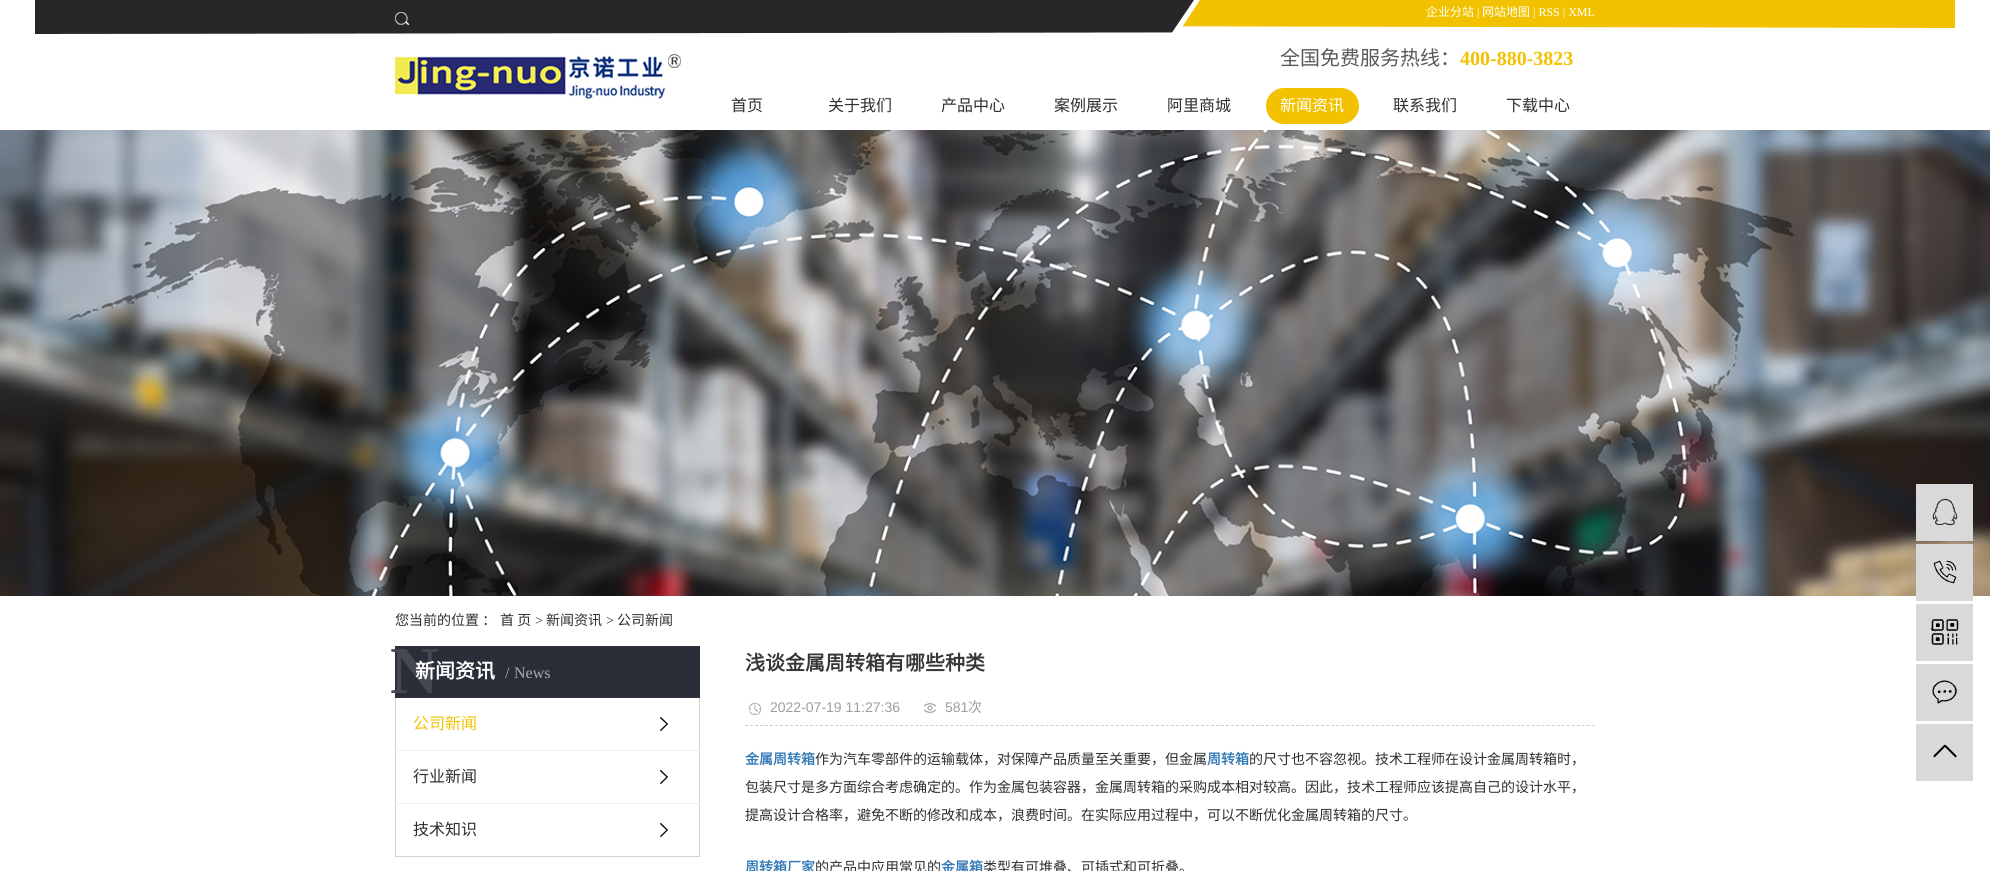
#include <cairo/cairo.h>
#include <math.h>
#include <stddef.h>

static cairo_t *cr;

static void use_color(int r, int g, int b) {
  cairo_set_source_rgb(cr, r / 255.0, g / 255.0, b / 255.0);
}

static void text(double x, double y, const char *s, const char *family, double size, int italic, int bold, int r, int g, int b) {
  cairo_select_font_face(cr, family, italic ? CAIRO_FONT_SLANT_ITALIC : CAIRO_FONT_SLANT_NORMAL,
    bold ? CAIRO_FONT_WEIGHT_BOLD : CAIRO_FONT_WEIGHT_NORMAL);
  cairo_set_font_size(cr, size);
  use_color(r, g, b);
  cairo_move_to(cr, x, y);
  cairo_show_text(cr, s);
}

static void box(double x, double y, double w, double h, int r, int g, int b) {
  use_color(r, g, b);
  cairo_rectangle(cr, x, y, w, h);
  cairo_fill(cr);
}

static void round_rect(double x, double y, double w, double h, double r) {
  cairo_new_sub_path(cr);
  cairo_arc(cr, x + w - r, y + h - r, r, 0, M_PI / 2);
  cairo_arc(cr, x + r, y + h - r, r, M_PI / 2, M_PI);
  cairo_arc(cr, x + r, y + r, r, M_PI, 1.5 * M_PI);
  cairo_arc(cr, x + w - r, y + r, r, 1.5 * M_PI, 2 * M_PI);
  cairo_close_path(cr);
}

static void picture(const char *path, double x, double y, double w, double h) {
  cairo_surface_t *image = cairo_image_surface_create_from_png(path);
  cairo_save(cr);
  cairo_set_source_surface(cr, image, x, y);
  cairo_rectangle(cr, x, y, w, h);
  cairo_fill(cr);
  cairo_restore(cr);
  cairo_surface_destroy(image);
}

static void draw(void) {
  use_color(255, 255, 255);
  cairo_paint(cr);
  picture("img_01.png", 35, 0, 1920, 34);
  picture("img_02.png", 395, 12, 14, 13);
  picture("img_03.png", 395, 54, 286, 46);
  use_color(242, 194, 0);
  round_rect(1266, 88, 93, 36, 18);
  cairo_fill(cr);
  picture("img_04.png", 0, 130, 1990, 466);
  box(1916, 484, 57, 57, 217, 217, 217);
  picture("img_05.png", 1932, 498, 26, 28);
  box(1916, 544, 57, 57, 217, 217, 217);
  picture("img_06.png", 1933, 560, 24, 24);
  box(1916, 604, 57, 57, 217, 217, 217);
  picture("img_07.png", 1931, 619, 28, 26);
  box(1916, 664, 57, 57, 217, 217, 217);
  picture("img_08.png", 1932, 680, 25, 24);
  box(1916, 724, 57, 57, 217, 217, 217);
  picture("img_09.png", 1933, 744, 24, 14);
  box(395, 646, 305, 52, 41, 46, 57);
  box(699, 698, 1, 159, 210, 210, 210);
  box(395, 856, 305, 1, 210, 210, 210);
  box(395, 698, 1, 159, 210, 210, 210);
  box(395, 750, 305, 1, 238, 238, 238);
  picture("img_10.png", 660, 717, 8, 14);
  box(395, 803, 305, 1, 238, 238, 238);
  picture("img_10.png", 660, 770, 8, 14);
  picture("img_10.png", 660, 823, 8, 14);
  cairo_new_path(cr);
  cairo_move_to(cr, 745, 725.5);
  cairo_line_to(cr, 1595, 725.5);
  use_color(207, 207, 207);
  cairo_set_line_width(cr, 1);
  cairo_set_dash(cr, (double[]){3, 2.01}, 2, 0);
  cairo_stroke(cr);
  picture("img_11.png", 749, 703, 12, 12);
  picture("img_12.png", 924, 703, 12, 10);
  text(1426, 16, "企业分站", "Noto Sans CJK SC", 12, 0, 0, 255, 255, 255);
  text(1477, 16, "|", "Liberation Serif", 12, 0, 0, 255, 255, 255);
  text(1482, 16, "网站地图", "Noto Sans CJK SC", 12, 0, 0, 255, 255, 255);
  text(1533, 16, "| RSS | XML", "Liberation Serif", 12, 0, 0, 255, 255, 255);
  text(1280, 65, "全国免费服务热线：", "Noto Sans CJK SC", 20, 0, 0, 89, 89, 89);
  text(1460, 65, "400-880-3823", "Liberation Serif", 20, 0, 1, 242, 194, 0);
  text(731, 111, "首页", "Noto Sans CJK SC", 16, 0, 0, 47, 47, 47);
  text(828, 111, "关于我们", "Noto Sans CJK SC", 16, 0, 0, 47, 47, 47);
  text(941, 111, "产品中心", "Noto Sans CJK SC", 16, 0, 0, 47, 47, 47);
  text(1054, 111, "案例展示", "Noto Sans CJK SC", 16, 0, 0, 47, 47, 47);
  text(1167, 111, "阿里商城", "Noto Sans CJK SC", 16, 0, 0, 47, 47, 47);
  text(1280, 111, "新闻资讯", "Noto Sans CJK SC", 16, 0, 0, 255, 255, 255);
  text(1393, 111, "联系我们", "Noto Sans CJK SC", 16, 0, 0, 47, 47, 47);
  text(1506, 111, "下载中心", "Noto Sans CJK SC", 16, 0, 0, 47, 47, 47);
  text(395, 625, "您当前的位置 ：", "Noto Sans CJK SC", 14, 0, 0, 47, 47, 47);
  text(500, 625, "首 页", "Noto Sans CJK SC", 14, 0, 0, 47, 47, 47);
  text(535, 625, ">", "Liberation Serif", 14, 0, 0, 47, 47, 47);
  text(546, 625, "新闻资讯", "Noto Sans CJK SC", 14, 0, 0, 47, 47, 47);
  text(606, 625, ">", "Liberation Serif", 14, 0, 0, 47, 47, 47);
  text(617, 625, "公司新闻", "Noto Sans CJK SC", 14, 0, 0, 47, 47, 47);
  text(390, 693, "N", "Liberation Serif", 67, 0, 1, 67, 72, 81);
  text(415, 678, "新闻资讯", "Noto Sans CJK SC", 20, 0, 1, 255, 255, 255);
  text(505, 678, "/", "Liberation Serif", 16, 0, 0, 169, 171, 176);
  text(514, 678, "News", "Liberation Serif", 16, 0, 0, 169, 171, 176);
  text(413, 729, "公司新闻", "Noto Sans CJK SC", 16, 0, 0, 242, 194, 0);
  text(413, 782, "行业新闻", "Noto Sans CJK SC", 16, 0, 0, 47, 47, 47);
  text(413, 835, "技术知识", "Noto Sans CJK SC", 16, 0, 0, 47, 47, 47);
  text(745, 670, "浅谈金属周转箱有哪些种类", "Noto Sans CJK SC", 20, 0, 1, 54, 54, 54);
  text(770, 712, "2022-07-19 11:27:36", "Liberation Sans", 14, 0, 0, 158, 158, 158);
  text(945, 712, "581", "Liberation Sans", 14, 0, 0, 158, 158, 158);
  text(968, 712, "次", "Noto Sans CJK SC", 14, 0, 0, 158, 158, 158);
  text(745, 764, "金属周转箱", "Noto Sans CJK SC", 14, 0, 1, 51, 122, 183);
  text(815, 764, "作为汽车零部件的运输载体，对保障产品质量至关重要，但金属", "Noto Sans CJK SC", 14, 0, 0, 47, 47, 47);
  text(1207, 764, "周转箱", "Noto Sans CJK SC", 14, 0, 1, 51, 122, 183);
  text(1249, 764, "的尺寸也不容忽视。技术工程师在设计金属周转箱时，", "Noto Sans CJK SC", 14, 0, 0, 47, 47, 47);
  text(745, 792, "包装尺寸是多方面综合考虑确定的。作为金属包装容器，金属周转箱的采购成本相对较高。因此，技术工程师应该提高自己的设计水平，", "Noto Sans CJK SC", 14, 0, 0, 47, 47, 47);
  text(745, 820, "提高设计合格率，避免不断的修改和成本，浪费时间。在实际应用过程中，可以不断优化金属周转箱的尺寸。", "Noto Sans CJK SC", 14, 0, 0, 47, 47, 47);
  text(745, 872, "周转箱厂家", "Noto Sans CJK SC", 14, 0, 1, 51, 122, 183);
  text(815, 872, "的产品中应用常见的", "Noto Sans CJK SC", 14, 0, 0, 47, 47, 47);
  text(941, 872, "金属箱", "Noto Sans CJK SC", 14, 0, 1, 51, 122, 183);
  text(983, 872, "类型有可堆叠、可插式和可折叠。", "Noto Sans CJK SC", 14, 0, 0, 47, 47, 47);
}

int main(void) {
  cairo_surface_t *surface = cairo_image_surface_create(CAIRO_FORMAT_RGB24, 1990, 871);
  cr = cairo_create(surface);
  cairo_font_options_t *options = cairo_font_options_create();
  cairo_font_options_set_hint_metrics(options, CAIRO_HINT_METRICS_OFF);
  cairo_font_options_set_hint_style(options, CAIRO_HINT_STYLE_NONE);
  cairo_set_font_options(cr, options);
  cairo_set_miter_limit(cr, 4);
  draw();
  cairo_surface_write_to_png(surface, "out.png");
  cairo_font_options_destroy(options);
  cairo_destroy(cr);
  cairo_surface_destroy(surface);
  return 0;
}
